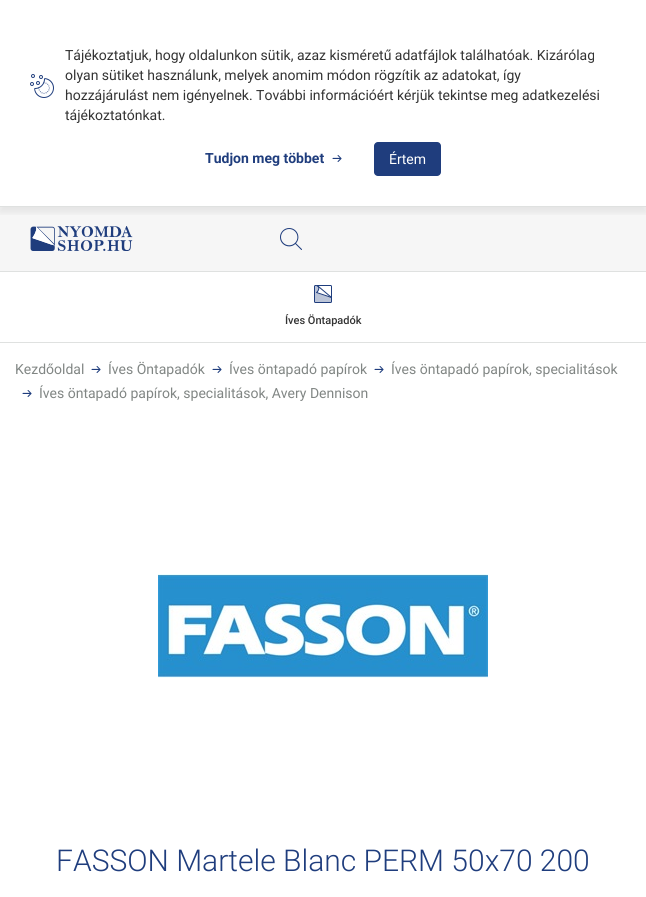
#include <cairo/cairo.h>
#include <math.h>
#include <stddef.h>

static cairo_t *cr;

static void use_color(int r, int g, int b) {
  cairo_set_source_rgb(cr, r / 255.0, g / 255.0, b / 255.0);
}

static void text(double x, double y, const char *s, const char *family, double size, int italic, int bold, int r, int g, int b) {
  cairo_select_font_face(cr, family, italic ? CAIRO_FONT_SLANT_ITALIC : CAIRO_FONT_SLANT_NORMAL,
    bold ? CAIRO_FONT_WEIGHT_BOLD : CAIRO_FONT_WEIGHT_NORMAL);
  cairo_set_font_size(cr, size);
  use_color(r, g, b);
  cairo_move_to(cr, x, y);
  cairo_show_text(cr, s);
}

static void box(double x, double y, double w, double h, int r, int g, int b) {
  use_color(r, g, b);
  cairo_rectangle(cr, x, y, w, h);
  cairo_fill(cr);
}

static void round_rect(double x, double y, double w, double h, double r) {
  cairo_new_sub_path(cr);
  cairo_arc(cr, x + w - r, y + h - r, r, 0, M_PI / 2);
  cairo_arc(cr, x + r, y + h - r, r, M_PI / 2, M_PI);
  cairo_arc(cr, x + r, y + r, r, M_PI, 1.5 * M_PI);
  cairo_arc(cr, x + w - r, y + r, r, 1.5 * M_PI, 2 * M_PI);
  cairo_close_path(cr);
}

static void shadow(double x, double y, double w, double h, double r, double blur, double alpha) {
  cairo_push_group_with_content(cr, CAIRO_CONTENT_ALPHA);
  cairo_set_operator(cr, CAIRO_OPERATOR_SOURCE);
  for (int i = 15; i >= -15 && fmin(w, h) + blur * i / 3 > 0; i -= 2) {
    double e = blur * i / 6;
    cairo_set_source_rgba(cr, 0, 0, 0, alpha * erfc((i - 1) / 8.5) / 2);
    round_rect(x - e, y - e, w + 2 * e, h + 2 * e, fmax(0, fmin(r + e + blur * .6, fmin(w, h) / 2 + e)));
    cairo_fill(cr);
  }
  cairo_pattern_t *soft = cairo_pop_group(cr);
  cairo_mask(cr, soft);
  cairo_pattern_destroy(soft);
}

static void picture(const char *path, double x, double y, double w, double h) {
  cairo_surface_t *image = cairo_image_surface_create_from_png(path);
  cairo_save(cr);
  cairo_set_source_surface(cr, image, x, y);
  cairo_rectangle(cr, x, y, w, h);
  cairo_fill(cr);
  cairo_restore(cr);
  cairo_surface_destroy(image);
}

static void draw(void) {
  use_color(255, 255, 255);
  cairo_paint(cr);
  box(0, 207, 646, 64, 246, 246, 246);
  cairo_save(cr);
  cairo_rectangle(cr, 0, 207, 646, 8);
  cairo_clip(cr);
  use_color(0, 0, 0);
  shadow(0, 5, 646, 207, 0, 4, 0.08);
  cairo_restore(cr);
  box(0, 206, 646, 1, 223, 225, 224);
  picture("img_01.png", 30, 74, 24, 24);
  picture("img_02.png", 332, 155, 10, 7);
  use_color(31, 61, 125);
  round_rect(374, 142, 67, 34, 4);
  cairo_fill(cr);
  box(0, 271, 646, 1, 223, 225, 224);
  picture("img_03.png", 30, 226, 103, 25);
  picture("img_04.png", 280, 228, 22, 22);
  box(0, 342, 646, 1, 223, 225, 224);
  picture("img_05.png", 314, 285, 18, 18);
  picture("img_02.png", 91, 366, 10, 7);
  picture("img_02.png", 212, 366, 10, 7);
  picture("img_02.png", 374, 366, 10, 7);
  picture("img_02.png", 22, 390, 10, 7);
  picture("img_06.png", 158, 574, 330, 104);
  text(65, 60, "Tájékoztatjuk, hogy oldalunkon sütik, azaz kisméretű adatfájlok találhatóak. Kizárólag", "Roboto", 14, 0, 0, 51, 51, 51);
  text(65, 80, "olyan sütiket használunk, melyek anomim módon rögzítik az adatokat, így", "Roboto", 14, 0, 0, 51, 51, 51);
  text(65, 100, "hozzájárulást nem igényelnek. További információért kérjük tekintse meg adatkezelési", "Roboto", 14, 0, 0, 51, 51, 51);
  text(65, 120, "tájékoztatónkat.", "Roboto", 14, 0, 0, 51, 51, 51);
  text(205, 163, "Tudjon meg többet", "Roboto", 14, 0, 1, 31, 61, 125);
  text(389, 164, "Értem", "Roboto", 14, 0, 0, 255, 255, 255);
  text(285, 324, "Íves Öntapadók", "Roboto Medium", 11, 0, 0, 51, 51, 51);
  text(15, 374, "Kezdőoldal", "Roboto", 14, 0, 0, 129, 134, 132);
  text(108, 374, "Íves Öntapadók", "Roboto", 14, 0, 0, 129, 134, 132);
  text(229, 374, "Íves öntapadó papírok", "Roboto", 14, 0, 0, 129, 134, 132);
  text(391, 374, "Íves öntapadó papírok, specialitások", "Roboto", 14, 0, 0, 129, 134, 132);
  text(39, 398, "Íves öntapadó papírok, specialitások, Avery Dennison", "Roboto", 14, 0, 0, 129, 134, 132);
  text(56, 871, "FASSON Martele Blanc PERM 50x70 200", "Roboto Light", 30, 0, 0, 31, 61, 125);
}

int main(void) {
  cairo_surface_t *surface = cairo_image_surface_create(CAIRO_FORMAT_RGB24, 646, 897);
  cr = cairo_create(surface);
  cairo_font_options_t *options = cairo_font_options_create();
  cairo_font_options_set_hint_metrics(options, CAIRO_HINT_METRICS_OFF);
  cairo_font_options_set_hint_style(options, CAIRO_HINT_STYLE_NONE);
  cairo_set_font_options(cr, options);
  cairo_set_miter_limit(cr, 4);
  draw();
  cairo_surface_write_to_png(surface, "out.png");
  cairo_font_options_destroy(options);
  cairo_destroy(cr);
  cairo_surface_destroy(surface);
  return 0;
}
